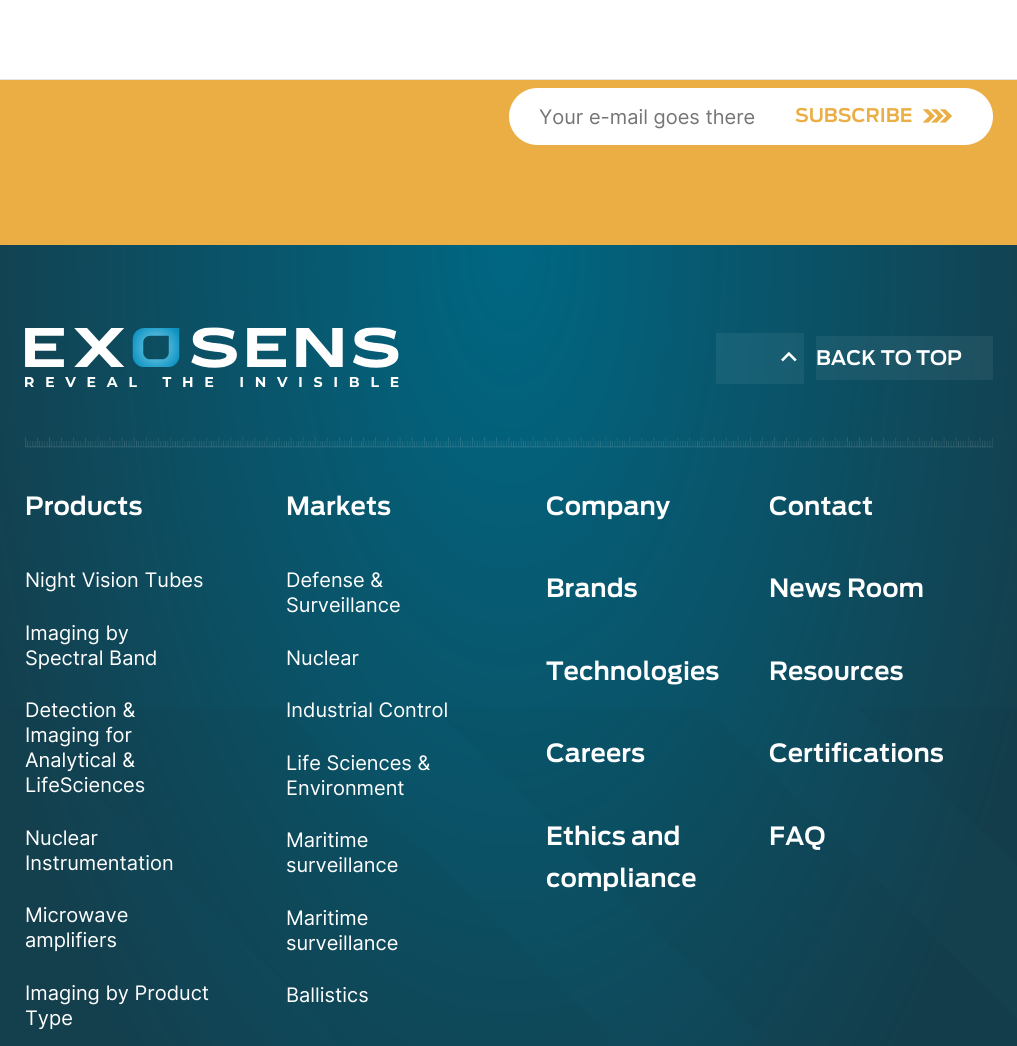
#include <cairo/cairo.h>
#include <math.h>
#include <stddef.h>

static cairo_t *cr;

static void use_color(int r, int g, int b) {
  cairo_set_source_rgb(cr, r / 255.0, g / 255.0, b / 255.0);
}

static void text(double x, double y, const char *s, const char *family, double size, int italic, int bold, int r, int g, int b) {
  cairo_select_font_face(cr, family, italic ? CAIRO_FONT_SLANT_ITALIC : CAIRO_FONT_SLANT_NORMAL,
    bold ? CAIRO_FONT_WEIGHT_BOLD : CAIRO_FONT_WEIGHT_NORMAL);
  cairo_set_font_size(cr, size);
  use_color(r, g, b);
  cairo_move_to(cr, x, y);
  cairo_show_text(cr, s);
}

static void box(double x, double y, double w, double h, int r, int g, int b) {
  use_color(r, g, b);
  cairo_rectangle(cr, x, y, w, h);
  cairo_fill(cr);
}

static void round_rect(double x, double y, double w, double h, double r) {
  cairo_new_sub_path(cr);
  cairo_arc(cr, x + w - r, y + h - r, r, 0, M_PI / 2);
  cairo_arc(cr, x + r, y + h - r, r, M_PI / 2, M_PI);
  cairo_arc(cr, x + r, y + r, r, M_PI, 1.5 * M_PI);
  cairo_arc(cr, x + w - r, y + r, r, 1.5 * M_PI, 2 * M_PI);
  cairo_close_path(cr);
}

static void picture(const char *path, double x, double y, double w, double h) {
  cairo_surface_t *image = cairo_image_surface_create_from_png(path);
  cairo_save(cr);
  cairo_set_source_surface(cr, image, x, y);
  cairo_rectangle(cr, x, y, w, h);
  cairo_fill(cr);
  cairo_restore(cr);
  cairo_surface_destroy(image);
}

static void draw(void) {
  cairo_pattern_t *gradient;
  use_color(235, 174, 68);
  cairo_paint(cr);
  box(0, 0, 1017, 79, 255, 255, 255);
  box(0, 79, 1017, 1, 228, 228, 228);
  use_color(255, 255, 255);
  round_rect(509, 88, 484, 57, 28.5);
  cairo_fill(cr);
  picture("img_01.png", 923, 109, 29, 14);
  gradient = cairo_pattern_create_radial(0, 0, 0, 0, 0, 1);
  cairo_pattern_set_matrix(gradient, &(cairo_matrix_t){1.0 / 565, 0, 0, 1.0 / 1120, -1.0 * 509 / 565, -1.0 * 245 / 1120});
  cairo_pattern_add_color_stop_rgba(gradient, 0, 0, 0.404, 0.514, 1);
  cairo_pattern_add_color_stop_rgba(gradient, 1, 0.078, 0.247, 0.302, 1);
  cairo_set_source(cr, gradient);
  cairo_pattern_destroy(gradient);
  cairo_rectangle(cr, 0, 245, 1017, 801);
  cairo_fill(cr);
  picture("img_02.png", 25, 327, 374, 60);
  cairo_set_source_rgba(cr, 1, 1, 1, 0.06);
  cairo_rectangle(cr, 716, 333, 88, 51);
  cairo_fill(cr);
  cairo_rectangle(cr, 816, 336, 177, 44);
  cairo_fill(cr);
  picture("img_03.png", 781, 351, 16, 11);
  picture("img_04.png", 25, 437, 968, 11);
  cairo_set_source_rgba(cr, 0, 0, 0, 0.03);
  cairo_new_path(cr);
  cairo_move_to(cr, 857, 708);
  cairo_line_to(cr, 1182, 1032);
  cairo_line_to(cr, 849, 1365);
  cairo_line_to(cr, 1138, 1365);
  cairo_line_to(cr, 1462, 1040);
  cairo_line_to(cr, 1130, 708);
  cairo_close_path(cr);
  cairo_fill(cr);
  cairo_new_path(cr);
  cairo_move_to(cr, 433, 708);
  cairo_line_to(cr, 757, 1032);
  cairo_line_to(cr, 425, 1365);
  cairo_line_to(cr, 713, 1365);
  cairo_line_to(cr, 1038, 1040);
  cairo_line_to(cr, 705, 708);
  cairo_close_path(cr);
  cairo_fill(cr);
  cairo_new_path(cr);
  cairo_move_to(cr, 8, 708);
  cairo_line_to(cr, 332, 1032);
  cairo_line_to(cr, 0, 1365);
  cairo_line_to(cr, 289, 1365);
  cairo_line_to(cr, 613, 1040);
  cairo_line_to(cr, 281, 708);
  cairo_close_path(cr);
  cairo_fill(cr);
  text(539, 124, "Your e-mail goes there", "Inter", 20, 0, 0, 117, 117, 117);
  text(795, 122, "SUBSCRIBE", "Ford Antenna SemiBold", 18.75, 0, 0, 235, 174, 68);
  text(816, 365, "BACK TO TOP", "Ford Antenna SemiBold", 20, 0, 0, 255, 255, 255);
  text(25, 515, "Products", "Ford Antenna SemiBold", 25, 0, 0, 255, 255, 255);
  text(25, 587, "Night Vision Tubes", "Inter", 20, 0, 0, 255, 255, 255);
  text(25, 640, "Imaging by", "Inter", 20, 0, 0, 255, 255, 255);
  text(25, 665, "Spectral Band", "Inter", 20, 0, 0, 255, 255, 255);
  text(25, 717, "Detection &", "Inter", 20, 0, 0, 255, 255, 255);
  text(25, 742, "Imaging for", "Inter", 20, 0, 0, 255, 255, 255);
  text(25, 767, "Analytical &", "Inter", 20, 0, 0, 255, 255, 255);
  text(25, 792, "LifeSciences", "Inter", 20, 0, 0, 255, 255, 255);
  text(25, 845, "Nuclear", "Inter", 20, 0, 0, 255, 255, 255);
  text(25, 870, "Instrumentation", "Inter", 20, 0, 0, 255, 255, 255);
  text(25, 922, "Microwave", "Inter", 20, 0, 0, 255, 255, 255);
  text(25, 947, "amplifiers", "Inter", 20, 0, 0, 255, 255, 255);
  text(25, 1000, "Imaging by Product", "Inter", 20, 0, 0, 255, 255, 255);
  text(25, 1025, "Type", "Inter", 20, 0, 0, 255, 255, 255);
  text(286, 515, "Markets", "Ford Antenna SemiBold", 25, 0, 0, 255, 255, 255);
  text(286, 587, "Defense &", "Inter", 20, 0, 0, 255, 255, 255);
  text(286, 612, "Surveillance", "Inter", 20, 0, 0, 255, 255, 255);
  text(286, 665, "Nuclear", "Inter", 20, 0, 0, 255, 255, 255);
  text(286, 717, "Industrial Control", "Inter", 20, 0, 0, 255, 255, 255);
  text(286, 770, "Life Sciences &", "Inter", 20, 0, 0, 255, 255, 255);
  text(286, 795, "Environment", "Inter", 20, 0, 0, 255, 255, 255);
  text(286, 847, "Maritime", "Inter", 20, 0, 0, 255, 255, 255);
  text(286, 872, "surveillance", "Inter", 20, 0, 0, 255, 255, 255);
  text(286, 925, "Maritime", "Inter", 20, 0, 0, 255, 255, 255);
  text(286, 950, "surveillance", "Inter", 20, 0, 0, 255, 255, 255);
  text(286, 1002, "Ballistics", "Inter", 20, 0, 0, 255, 255, 255);
  text(546, 515, "Company", "Ford Antenna SemiBold", 25, 0, 0, 255, 255, 255);
  text(769, 515, "Contact", "Ford Antenna SemiBold", 25, 0, 0, 255, 255, 255);
  text(546, 597, "Brands", "Ford Antenna SemiBold", 25, 0, 0, 255, 255, 255);
  text(769, 597, "News Room", "Ford Antenna SemiBold", 25, 0, 0, 255, 255, 255);
  text(546, 680, "Technologies", "Ford Antenna SemiBold", 25, 0, 0, 255, 255, 255);
  text(769, 680, "Resources", "Ford Antenna SemiBold", 25, 0, 0, 255, 255, 255);
  text(546, 762, "Careers", "Ford Antenna SemiBold", 25, 0, 0, 255, 255, 255);
  text(769, 762, "Certifications", "Ford Antenna SemiBold", 25, 0, 0, 255, 255, 255);
  text(546, 845, "Ethics and", "Ford Antenna SemiBold", 25, 0, 0, 255, 255, 255);
  text(546, 887, "compliance", "Ford Antenna SemiBold", 25, 0, 0, 255, 255, 255);
  text(769, 845, "FAQ", "Ford Antenna SemiBold", 25, 0, 0, 255, 255, 255);
}

int main(void) {
  cairo_surface_t *surface = cairo_image_surface_create(CAIRO_FORMAT_RGB24, 1017, 1046);
  cr = cairo_create(surface);
  cairo_font_options_t *options = cairo_font_options_create();
  cairo_font_options_set_hint_metrics(options, CAIRO_HINT_METRICS_OFF);
  cairo_font_options_set_hint_style(options, CAIRO_HINT_STYLE_NONE);
  cairo_set_font_options(cr, options);
  cairo_set_miter_limit(cr, 4);
  draw();
  cairo_surface_write_to_png(surface, "out.png");
  cairo_font_options_destroy(options);
  cairo_destroy(cr);
  cairo_surface_destroy(surface);
  return 0;
}
